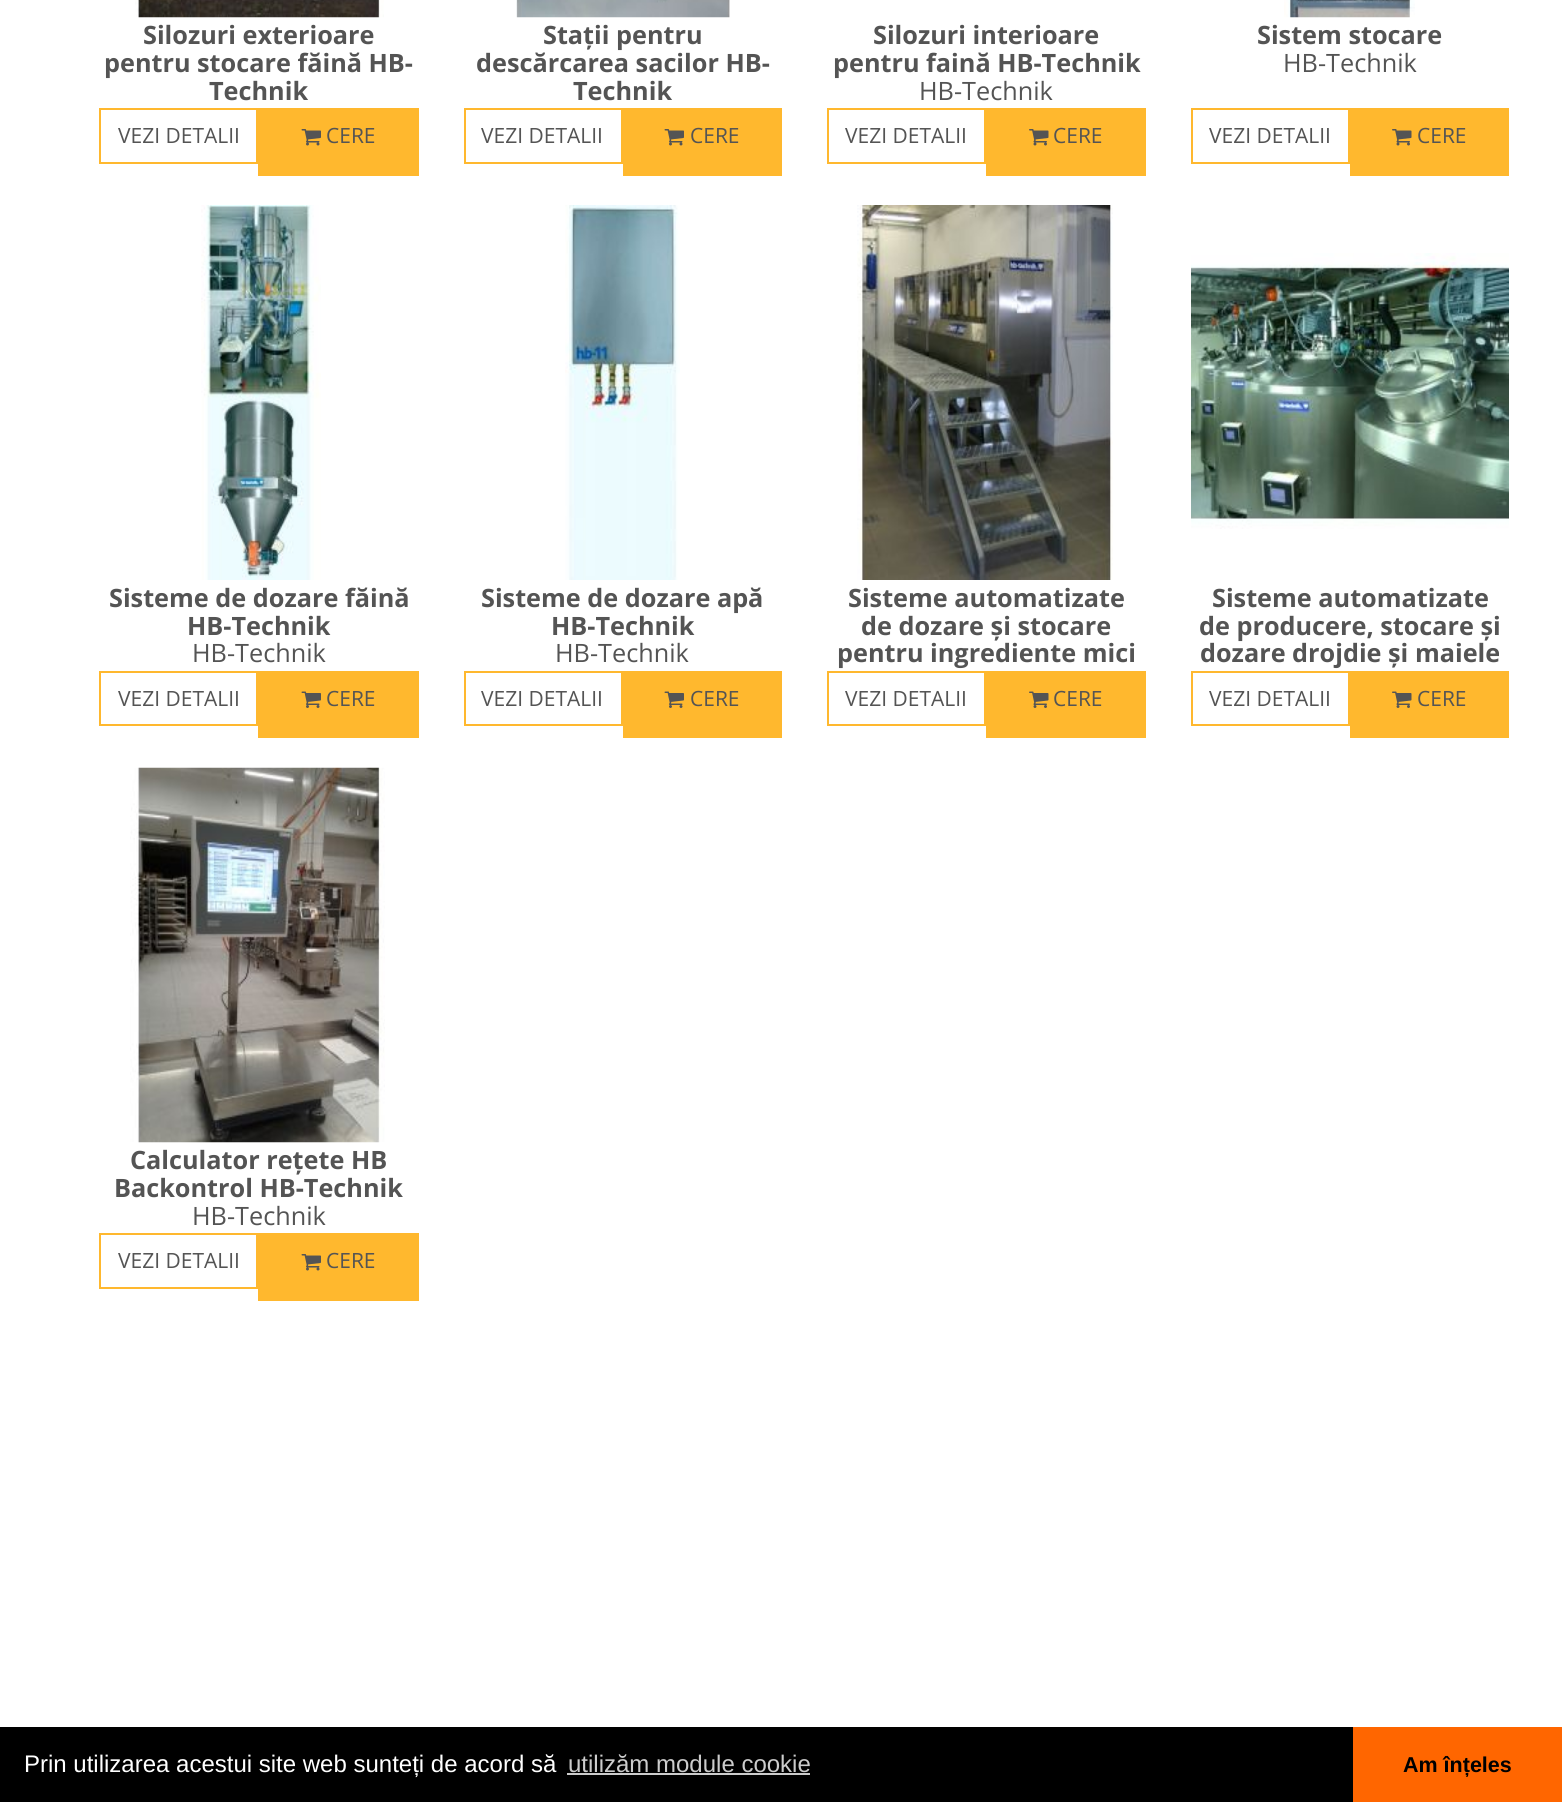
#include <cairo/cairo.h>
#include <math.h>
#include <stddef.h>

static cairo_t *cr;

static void use_color(int r, int g, int b) {
  cairo_set_source_rgb(cr, r / 255.0, g / 255.0, b / 255.0);
}

static void text(double x, double y, const char *s, const char *family, double size, int italic, int bold, int r, int g, int b) {
  cairo_select_font_face(cr, family, italic ? CAIRO_FONT_SLANT_ITALIC : CAIRO_FONT_SLANT_NORMAL,
    bold ? CAIRO_FONT_WEIGHT_BOLD : CAIRO_FONT_WEIGHT_NORMAL);
  cairo_set_font_size(cr, size);
  use_color(r, g, b);
  cairo_move_to(cr, x, y);
  cairo_show_text(cr, s);
}

static void box(double x, double y, double w, double h, int r, int g, int b) {
  use_color(r, g, b);
  cairo_rectangle(cr, x, y, w, h);
  cairo_fill(cr);
}

static void picture(const char *path, double x, double y, double w, double h) {
  cairo_surface_t *image = cairo_image_surface_create_from_png(path);
  cairo_save(cr);
  cairo_set_source_surface(cr, image, x, y);
  cairo_rectangle(cr, x, y, w, h);
  cairo_fill(cr);
  cairo_restore(cr);
  cairo_surface_destroy(image);
}

static void draw(void) {
  use_color(255, 255, 255);
  cairo_paint(cr);
  picture("img_01.png", 135, 0, 249, 18);
  cairo_rectangle(cr, 100, 109, 157, 54);
  use_color(255, 184, 46);
  cairo_stroke(cr);
  box(258, 108, 161, 68, 255, 184, 46);
  picture("img_02.png", 301, 129, 20, 17);
  picture("img_03.png", 516, 0, 214, 18);
  cairo_rectangle(cr, 465, 109, 157, 54);
  cairo_stroke(cr);
  box(623, 108, 159, 68, 255, 184, 46);
  picture("img_02.png", 664, 129, 20, 17);
  cairo_rectangle(cr, 828, 109, 157, 54);
  cairo_stroke(cr);
  box(986, 108, 160, 68, 255, 184, 46);
  picture("img_04.png", 1029, 129, 20, 17);
  picture("img_05.png", 1284, 0, 131, 18);
  cairo_rectangle(cr, 1192, 109, 157, 54);
  cairo_stroke(cr);
  box(1350, 108, 159, 68, 255, 184, 46);
  picture("img_04.png", 1392, 129, 20, 17);
  picture("img_06.png", 201, 205, 120, 375);
  cairo_rectangle(cr, 100, 672, 157, 53);
  cairo_stroke(cr);
  box(258, 671, 161, 67, 255, 184, 46);
  picture("img_07.png", 301, 691, 20, 17);
  picture("img_08.png", 565, 205, 115, 375);
  cairo_rectangle(cr, 465, 672, 157, 53);
  cairo_stroke(cr);
  box(623, 671, 159, 67, 255, 184, 46);
  picture("img_07.png", 664, 691, 20, 17);
  picture("img_09.png", 857, 205, 256, 375);
  cairo_rectangle(cr, 828, 672, 157, 53);
  cairo_stroke(cr);
  box(986, 671, 160, 67, 255, 184, 46);
  picture("img_10.png", 1029, 691, 20, 17);
  picture("img_11.png", 1191, 253, 318, 276);
  cairo_rectangle(cr, 1192, 672, 157, 53);
  cairo_stroke(cr);
  box(1350, 671, 159, 67, 255, 184, 46);
  picture("img_10.png", 1392, 691, 20, 17);
  picture("img_12.png", 130, 767, 255, 376);
  cairo_rectangle(cr, 100, 1234, 157, 54);
  cairo_stroke(cr);
  box(258, 1233, 161, 68, 255, 184, 46);
  picture("img_02.png", 301, 1254, 20, 17);
  box(0, 1727, 1353, 75, 0, 0, 0);
  box(567, 1773, 243, 2, 204, 204, 204);
  box(1353, 1727, 209, 75, 255, 102, 0);
  text(143, 44, "Silozuri exterioare", "Open Sans", 25.25, 0, 1, 84, 84, 84);
  text(104, 72, "pentru stocare făină HB-", "Open Sans", 25.25, 0, 1, 84, 84, 84);
  text(209, 100, "Technik", "Open Sans", 25.25, 0, 1, 84, 84, 84);
  text(118, 143, "VEZI DETALII", "Open Sans", 21, 0, 0, 84, 84, 84);
  text(326, 143, "CERE", "Open Sans", 21, 0, 0, 84, 84, 84);
  text(543, 44, "Stații pentru", "Open Sans", 25.25, 0, 1, 84, 84, 84);
  text(476, 72, "descărcarea sacilor HB-", "Open Sans", 25.25, 0, 1, 84, 84, 84);
  text(573, 100, "Technik", "Open Sans", 25.25, 0, 1, 84, 84, 84);
  text(481, 143, "VEZI DETALII", "Open Sans", 21, 0, 0, 84, 84, 84);
  text(690, 143, "CERE", "Open Sans", 21, 0, 0, 84, 84, 84);
  text(873, 44, "Silozuri interioare", "Open Sans", 25.25, 0, 1, 84, 84, 84);
  text(833, 72, "pentru faină HB-Technik", "Open Sans", 25.25, 0, 1, 84, 84, 84);
  text(919, 100, "HB-Technik", "Open Sans", 25.25, 0, 0, 84, 84, 84);
  text(845, 143, "VEZI DETALII", "Open Sans", 21, 0, 0, 84, 84, 84);
  text(1053, 143, "CERE", "Open Sans", 21, 0, 0, 84, 84, 84);
  text(1257, 44, "Sistem stocare", "Open Sans", 25.25, 0, 1, 84, 84, 84);
  text(1283, 72, "HB-Technik", "Open Sans", 25.25, 0, 0, 84, 84, 84);
  text(1209, 143, "VEZI DETALII", "Open Sans", 21, 0, 0, 84, 84, 84);
  text(1417, 143, "CERE", "Open Sans", 21, 0, 0, 84, 84, 84);
  text(109, 607, "Sisteme de dozare făină", "Open Sans", 25.25, 0, 1, 84, 84, 84);
  text(187, 635, "HB-Technik", "Open Sans", 25.25, 0, 1, 84, 84, 84);
  text(192, 662, "HB-Technik", "Open Sans", 25.25, 0, 0, 84, 84, 84);
  text(118, 706, "VEZI DETALII", "Open Sans", 21, 0, 0, 84, 84, 84);
  text(326, 706, "CERE", "Open Sans", 21, 0, 0, 84, 84, 84);
  text(481, 607, "Sisteme de dozare apă", "Open Sans", 25.25, 0, 1, 84, 84, 84);
  text(551, 635, "HB-Technik", "Open Sans", 25.25, 0, 1, 84, 84, 84);
  text(555, 662, "HB-Technik", "Open Sans", 25.25, 0, 0, 84, 84, 84);
  text(481, 706, "VEZI DETALII", "Open Sans", 21, 0, 0, 84, 84, 84);
  text(690, 706, "CERE", "Open Sans", 21, 0, 0, 84, 84, 84);
  text(848, 607, "Sisteme automatizate", "Open Sans", 25.25, 0, 1, 84, 84, 84);
  text(861, 635, "de dozare și stocare", "Open Sans", 25.25, 0, 1, 84, 84, 84);
  text(837, 662, "pentru ingrediente mici", "Open Sans", 25.25, 0, 1, 84, 84, 84);
  text(845, 706, "VEZI DETALII", "Open Sans", 21, 0, 0, 84, 84, 84);
  text(1053, 706, "CERE", "Open Sans", 21, 0, 0, 84, 84, 84);
  text(1212, 607, "Sisteme automatizate", "Open Sans", 25.25, 0, 1, 84, 84, 84);
  text(1199, 635, "de producere, stocare și", "Open Sans", 25.25, 0, 1, 84, 84, 84);
  text(1200, 662, "dozare drojdie și maiele", "Open Sans", 25.25, 0, 1, 84, 84, 84);
  text(1209, 706, "VEZI DETALII", "Open Sans", 21, 0, 0, 84, 84, 84);
  text(1417, 706, "CERE", "Open Sans", 21, 0, 0, 84, 84, 84);
  text(130, 1169, "Calculator rețete HB", "Open Sans", 25.25, 0, 1, 84, 84, 84);
  text(114, 1197, "Backontrol HB-Technik", "Open Sans", 25.25, 0, 1, 84, 84, 84);
  text(192, 1225, "HB-Technik", "Open Sans", 25.25, 0, 0, 84, 84, 84);
  text(118, 1268, "VEZI DETALII", "Open Sans", 21, 0, 0, 84, 84, 84);
  text(326, 1268, "CERE", "Open Sans", 21, 0, 0, 84, 84, 84);
  text(24, 1772, "Prin utilizarea acestui site web sunteți de acord să", "Liberation Sans", 24, 0, 0, 255, 255, 255);
  text(568, 1772, "utilizăm module cookie", "Liberation Sans", 24, 0, 0, 204, 204, 204);
  text(1403, 1772, "Am înțeles", "Liberation Sans", 21.5, 0, 1, 0, 0, 0);
}

int main(void) {
  cairo_surface_t *surface = cairo_image_surface_create(CAIRO_FORMAT_RGB24, 1562, 1802);
  cr = cairo_create(surface);
  cairo_font_options_t *options = cairo_font_options_create();
  cairo_font_options_set_hint_metrics(options, CAIRO_HINT_METRICS_OFF);
  cairo_font_options_set_hint_style(options, CAIRO_HINT_STYLE_NONE);
  cairo_set_font_options(cr, options);
  cairo_set_miter_limit(cr, 4);
  draw();
  cairo_surface_write_to_png(surface, "out.png");
  cairo_font_options_destroy(options);
  cairo_destroy(cr);
  cairo_surface_destroy(surface);
  return 0;
}
